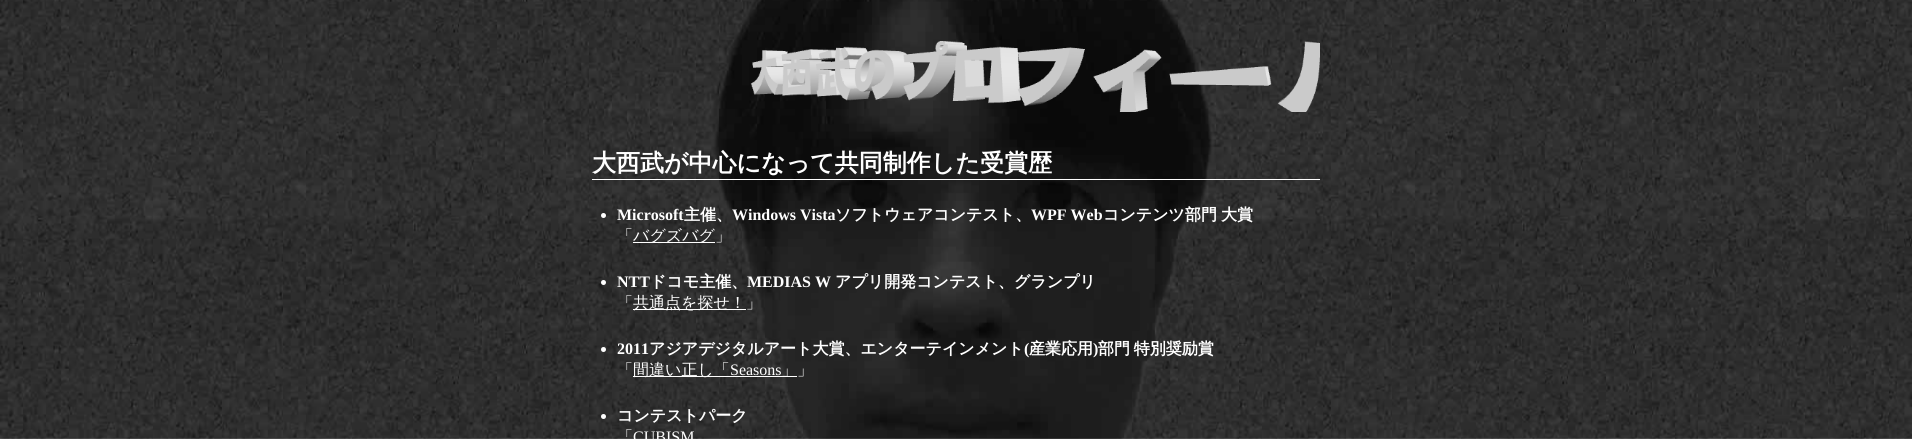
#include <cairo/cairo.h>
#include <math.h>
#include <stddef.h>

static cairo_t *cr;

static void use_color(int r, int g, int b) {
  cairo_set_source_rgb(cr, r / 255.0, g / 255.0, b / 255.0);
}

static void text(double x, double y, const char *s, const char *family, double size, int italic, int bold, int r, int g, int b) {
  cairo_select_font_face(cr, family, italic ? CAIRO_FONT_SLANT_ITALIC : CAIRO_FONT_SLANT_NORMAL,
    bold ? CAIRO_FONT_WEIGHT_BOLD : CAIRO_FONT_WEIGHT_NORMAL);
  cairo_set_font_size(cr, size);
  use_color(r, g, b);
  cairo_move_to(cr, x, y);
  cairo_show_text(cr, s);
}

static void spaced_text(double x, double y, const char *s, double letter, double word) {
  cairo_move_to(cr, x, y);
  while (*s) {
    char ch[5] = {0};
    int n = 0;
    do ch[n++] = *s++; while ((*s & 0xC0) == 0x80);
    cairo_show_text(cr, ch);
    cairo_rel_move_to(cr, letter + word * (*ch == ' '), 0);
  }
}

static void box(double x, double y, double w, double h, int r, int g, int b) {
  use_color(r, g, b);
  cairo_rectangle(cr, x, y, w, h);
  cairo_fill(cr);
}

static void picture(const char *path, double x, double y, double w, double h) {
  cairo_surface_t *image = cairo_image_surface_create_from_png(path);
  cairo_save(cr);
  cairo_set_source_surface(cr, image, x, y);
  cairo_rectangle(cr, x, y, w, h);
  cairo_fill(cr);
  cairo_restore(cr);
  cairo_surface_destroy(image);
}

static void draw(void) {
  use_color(255, 255, 255);
  cairo_paint(cr);
  picture("img_01.png", 0, 0, 1912, 439);
  picture("img_02.png", 750, 41, 570, 71);
  box(592, 179, 728, 1, 255, 255, 255);
  cairo_arc(cr, 603.5, 215.5, 2.5, 0, 2 * M_PI);
  cairo_fill(cr);
  box(633, 242, 82, 1, 255, 255, 255);
  cairo_arc(cr, 603.5, 282.5, 2.5, 0, 2 * M_PI);
  cairo_fill(cr);
  box(633, 309, 113, 1, 255, 255, 255);
  cairo_arc(cr, 603.5, 349.5, 2.5, 0, 2 * M_PI);
  cairo_fill(cr);
  box(633, 376, 164, 1, 255, 255, 255);
  cairo_arc(cr, 603.5, 416.5, 2.5, 0, 2 * M_PI);
  cairo_fill(cr);
  text(592, 171, "大西武が中心になって共同制作した受賞歴", "WenQuanYi Zen Hei", 24, 0, 1, 255, 255, 255);
  text(617, 220, "Microsoft", "Liberation Serif", 16, 0, 1, 255, 255, 255);
  text(684, 220, "主催、", "WenQuanYi Zen Hei", 16, 0, 1, 255, 255, 255);
  text(732, 220, "Windows Vista", "Liberation Serif", 16, 0, 1, 255, 255, 255);
  text(835, 220, "ソフトウェアコンテスト、", "WenQuanYi Zen Hei", 16, 0, 1, 255, 255, 255);
  text(1031, 220, "WPF Web", "Liberation Serif", 16, 0, 1, 255, 255, 255);
  text(1103, 220, "コンテンツ部門", "WenQuanYi Zen Hei", 16, 0, 1, 255, 255, 255);
  text(1221, 220, "大賞", "WenQuanYi Zen Hei", 16, 0, 1, 255, 255, 255);
  text(617, 241, "「", "WenQuanYi Zen Hei Medium", 16, 0, 0, 255, 255, 255);
  text(633, 241, "バグズバグ」", "WenQuanYi Zen Hei Medium", 16, 0, 0, 255, 255, 255);
  text(617, 287, "NTT", "Liberation Serif", 16, 0, 1, 255, 255, 255);
  text(650, 287, "ドコモ主催、", "WenQuanYi Zen Hei", 16, 0, 1, 255, 255, 255);
  text(747, 287, "MEDIAS W", "Liberation Serif", 16, 0, 1, 255, 255, 255);
  text(835, 287, "アプリ開発コンテスト、グランプリ", "WenQuanYi Zen Hei", 16, 0, 1, 255, 255, 255);
  text(617, 308, "「", "WenQuanYi Zen Hei Medium", 16, 0, 0, 255, 255, 255);
  text(633, 308, "共通点を探せ！」", "WenQuanYi Zen Hei Medium", 16, 0, 0, 255, 255, 255);
  text(617, 354, "2011", "Liberation Serif", 16, 0, 1, 255, 255, 255);
  text(649, 354, "アジアデジタルアート大賞、エンターテインメント", "WenQuanYi Zen Hei", 16, 0, 1, 255, 255, 255);
  text(1024, 354, "(", "Liberation Serif", 16, 0, 1, 255, 255, 255);
  text(1029, 354, "産業応用", "WenQuanYi Zen Hei", 16, 0, 1, 255, 255, 255);
  text(1093, 354, ")", "Liberation Serif", 16, 0, 1, 255, 255, 255);
  cairo_select_font_face(cr, "WenQuanYi Zen Hei", CAIRO_FONT_SLANT_NORMAL, CAIRO_FONT_WEIGHT_BOLD);
  spaced_text(1098, 354, "部門 特別奨励賞", 0, -1);
  text(617, 375, "「", "WenQuanYi Zen Hei Medium", 16, 0, 0, 255, 255, 255);
  text(633, 375, "間違い正し「", "WenQuanYi Zen Hei Medium", 16, 0, 0, 255, 255, 255);
  text(730, 375, "Seasons", "Liberation Serif", 16, 0, 0, 255, 255, 255);
  text(781, 375, "」」", "WenQuanYi Zen Hei Medium", 16, 0, 0, 255, 255, 255);
  text(617, 421, "コンテストパーク", "WenQuanYi Zen Hei", 16, 0, 1, 255, 255, 255);
  text(617, 442, "「", "WenQuanYi Zen Hei Medium", 16, 0, 0, 255, 255, 255);
  text(633, 442, "CUBISM", "Liberation Serif", 16, 0, 0, 255, 255, 255);
}

int main(void) {
  cairo_surface_t *surface = cairo_image_surface_create(CAIRO_FORMAT_RGB24, 1912, 439);
  cr = cairo_create(surface);
  cairo_font_options_t *options = cairo_font_options_create();
  cairo_font_options_set_hint_metrics(options, CAIRO_HINT_METRICS_OFF);
  cairo_font_options_set_hint_style(options, CAIRO_HINT_STYLE_NONE);
  cairo_set_font_options(cr, options);
  cairo_set_miter_limit(cr, 4);
  draw();
  cairo_surface_write_to_png(surface, "out.png");
  cairo_font_options_destroy(options);
  cairo_destroy(cr);
  cairo_surface_destroy(surface);
  return 0;
}
